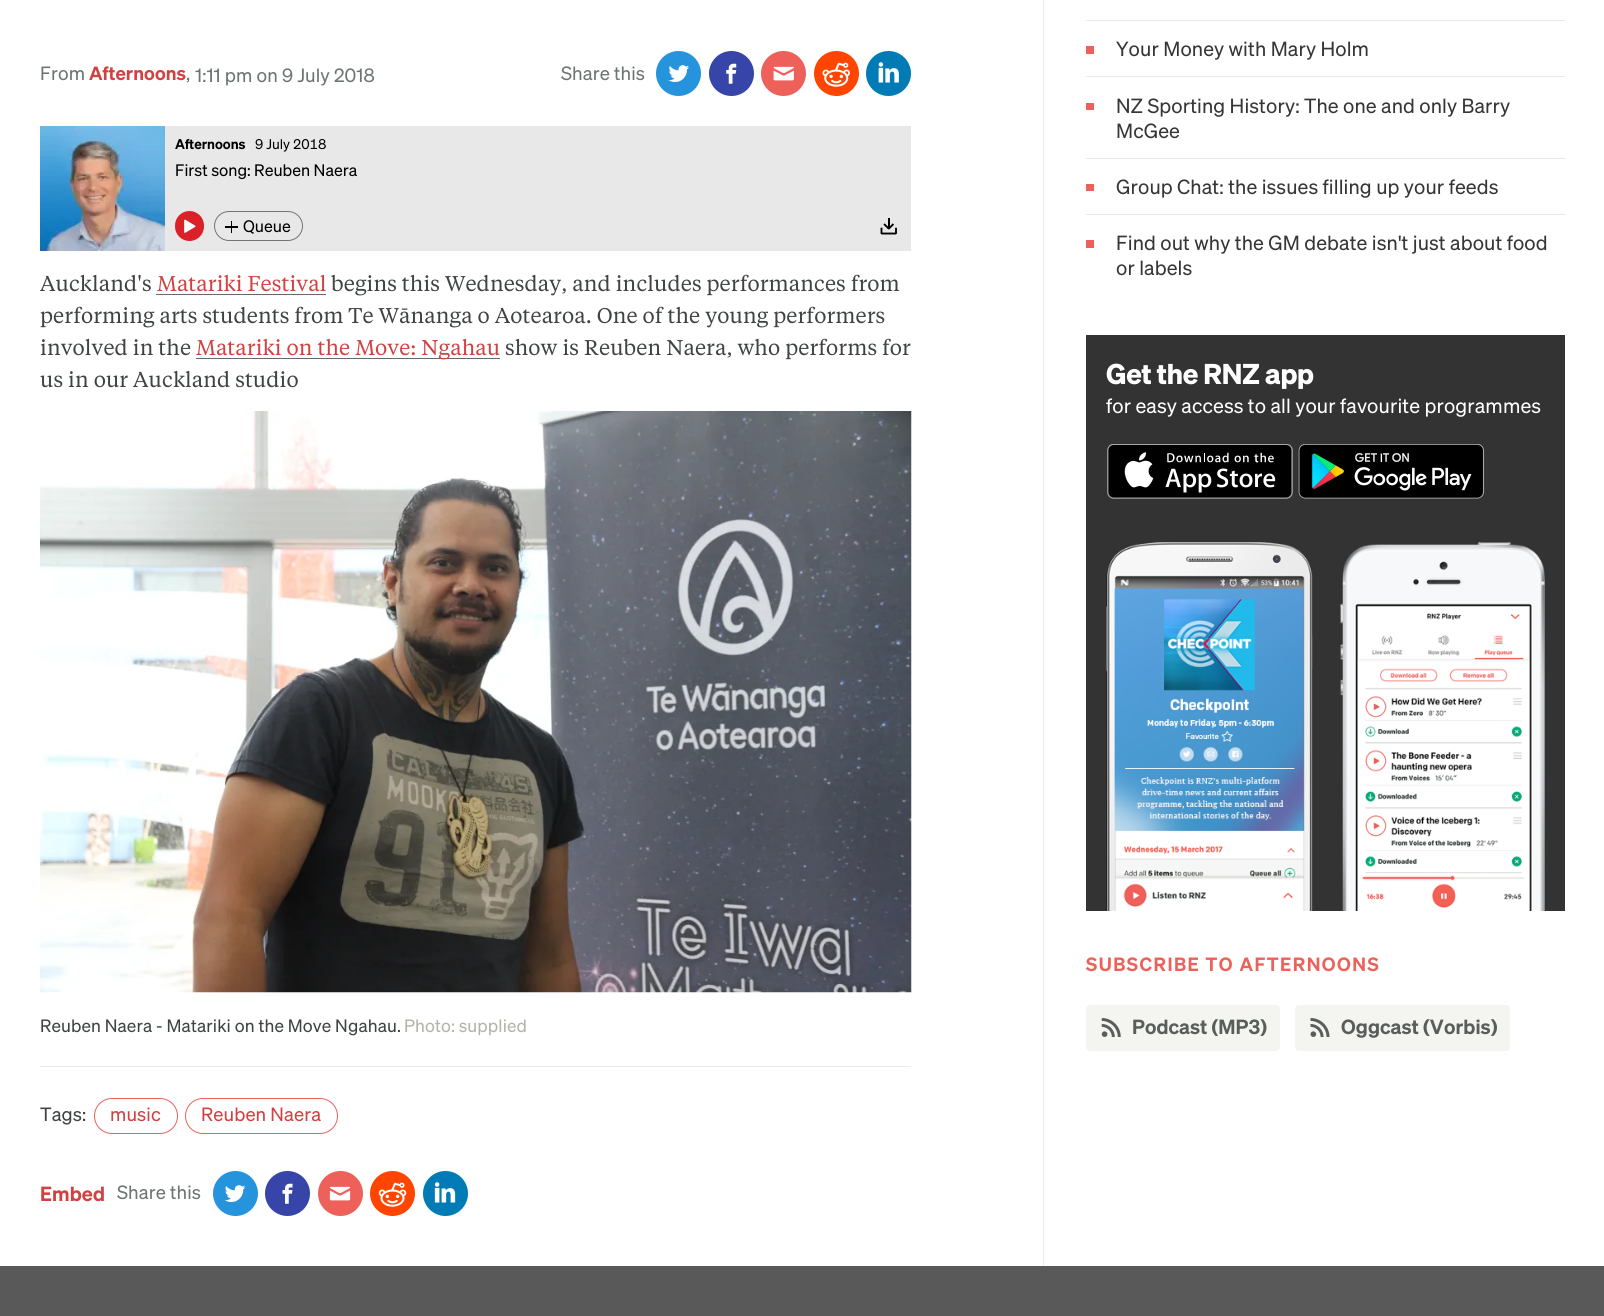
#include <cairo/cairo.h>
#include <math.h>
#include <stddef.h>

static cairo_t *cr;

static void use_color(int r, int g, int b) {
  cairo_set_source_rgb(cr, r / 255.0, g / 255.0, b / 255.0);
}

static void text(double x, double y, const char *s, const char *family, double size, int italic, int bold, int r, int g, int b) {
  cairo_select_font_face(cr, family, italic ? CAIRO_FONT_SLANT_ITALIC : CAIRO_FONT_SLANT_NORMAL,
    bold ? CAIRO_FONT_WEIGHT_BOLD : CAIRO_FONT_WEIGHT_NORMAL);
  cairo_set_font_size(cr, size);
  use_color(r, g, b);
  cairo_move_to(cr, x, y);
  cairo_show_text(cr, s);
}

static void spaced_text(double x, double y, const char *s, double letter, double word) {
  cairo_move_to(cr, x, y);
  while (*s) {
    char ch[5] = {0};
    int n = 0;
    do ch[n++] = *s++; while ((*s & 0xC0) == 0x80);
    cairo_show_text(cr, ch);
    cairo_rel_move_to(cr, letter + word * (*ch == ' '), 0);
  }
}

static void box(double x, double y, double w, double h, int r, int g, int b) {
  use_color(r, g, b);
  cairo_rectangle(cr, x, y, w, h);
  cairo_fill(cr);
}

static void round_rect(double x, double y, double w, double h, double r) {
  cairo_new_sub_path(cr);
  cairo_arc(cr, x + w - r, y + h - r, r, 0, M_PI / 2);
  cairo_arc(cr, x + r, y + h - r, r, M_PI / 2, M_PI);
  cairo_arc(cr, x + r, y + r, r, M_PI, 1.5 * M_PI);
  cairo_arc(cr, x + w - r, y + r, r, 1.5 * M_PI, 2 * M_PI);
  cairo_close_path(cr);
}

static void picture(const char *path, double x, double y, double w, double h) {
  cairo_surface_t *image = cairo_image_surface_create_from_png(path);
  cairo_save(cr);
  cairo_set_source_surface(cr, image, x, y);
  cairo_rectangle(cr, x, y, w, h);
  cairo_fill(cr);
  cairo_restore(cr);
  cairo_surface_destroy(image);
}

static void draw(void) {
  use_color(255, 255, 255);
  cairo_paint(cr);
  use_color(38, 147, 221);
  cairo_arc(cr, 678.5, 73.5, 22.5, 0, 2 * M_PI);
  cairo_fill(cr);
  picture("img_01.png", 668, 65, 21, 17);
  use_color(55, 68, 168);
  cairo_arc(cr, 731.5, 73.5, 22.5, 0, 2 * M_PI);
  cairo_fill(cr);
  picture("img_02.png", 726, 63, 11, 21);
  use_color(237, 97, 90);
  cairo_arc(cr, 783.5, 73.5, 22.5, 0, 2 * M_PI);
  cairo_fill(cr);
  picture("img_03.png", 773, 66, 21, 15);
  use_color(255, 69, 0);
  cairo_arc(cr, 836.5, 73.5, 22.5, 0, 2 * M_PI);
  cairo_fill(cr);
  picture("img_04.png", 822, 62, 28, 25);
  use_color(0, 123, 182);
  cairo_arc(cr, 888.5, 73.5, 22.5, 0, 2 * M_PI);
  cairo_fill(cr);
  picture("img_05.png", 878, 62, 21, 21);
  box(165, 126, 746, 125, 232, 232, 232);
  picture("img_06.png", 40, 126, 125, 125);
  use_color(218, 33, 40);
  round_rect(175, 211, 29, 30, 14.5);
  cairo_fill(cr);
  picture("img_07.png", 184, 219, 12, 14);
  round_rect(214.5, 211.5, 88, 29, 14.5);
  use_color(116, 116, 116);
  cairo_set_line_width(cr, 1);
  cairo_stroke(cr);
  box(231, 221, 1, 12, 0, 0, 0);
  box(225, 226, 13, 2, 0, 0, 0);
  picture("img_08.png", 880, 218, 17, 17);
  box(156, 294, 170, 1, 102, 105, 103);
  box(196, 358, 304, 1, 102, 105, 103);
  picture("img_09.png", 40, 411, 872, 582);
  box(40, 1066, 871, 1, 235, 234, 230);
  round_rect(94.5, 1098.5, 83, 35, 17.5);
  use_color(237, 97, 90);
  cairo_stroke(cr);
  round_rect(185.5, 1098.5, 152, 35, 17.5);
  cairo_stroke(cr);
  use_color(38, 147, 221);
  cairo_arc(cr, 235.5, 1193.5, 22.5, 0, 2 * M_PI);
  cairo_fill(cr);
  picture("img_10.png", 224, 1185, 22, 17);
  use_color(55, 68, 168);
  cairo_arc(cr, 287.5, 1193.5, 22.5, 0, 2 * M_PI);
  cairo_fill(cr);
  picture("img_11.png", 282, 1183, 11, 21);
  use_color(237, 97, 90);
  cairo_arc(cr, 340.5, 1193.5, 22.5, 0, 2 * M_PI);
  cairo_fill(cr);
  picture("img_12.png", 329, 1186, 22, 15);
  use_color(255, 69, 0);
  cairo_arc(cr, 392.5, 1193.5, 22.5, 0, 2 * M_PI);
  cairo_fill(cr);
  picture("img_13.png", 378, 1182, 29, 25);
  use_color(0, 123, 182);
  cairo_arc(cr, 445.5, 1193.5, 22.5, 0, 2 * M_PI);
  cairo_fill(cr);
  picture("img_14.png", 434, 1182, 22, 21);
  box(1043, 0, 1, 1266, 235, 234, 230);
  box(1086, 20, 479, 1, 235, 234, 230);
  box(1086, 46, 8, 8, 237, 97, 90);
  box(1086, 76, 479, 1, 235, 234, 230);
  box(1086, 103, 8, 7, 237, 97, 90);
  box(1086, 158, 479, 1, 235, 234, 230);
  box(1086, 184, 8, 7, 237, 97, 90);
  box(1086, 214, 479, 1, 235, 234, 230);
  box(1086, 240, 8, 8, 237, 97, 90);
  box(1086, 335, 479, 576, 51, 51, 51);
  picture("img_15.png", 1107, 444, 186, 55);
  picture("img_16.png", 1298, 444, 187, 55);
  picture("img_17.png", 1106, 542, 207, 369);
  picture("img_18.png", 1340, 542, 205, 369);
  use_color(244, 244, 241);
  round_rect(1086, 1005, 194, 46, 4);
  cairo_fill(cr);
  picture("img_19.png", 1101, 1018, 20, 19);
  round_rect(1295, 1005, 215, 46, 4);
  cairo_fill(cr);
  picture("img_20.png", 1310, 1018, 20, 19);
  box(0, 1266, 1604, 50, 89, 89, 89);
  cairo_select_font_face(cr, "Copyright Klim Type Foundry", CAIRO_FONT_SLANT_NORMAL, CAIRO_FONT_WEIGHT_NORMAL);
  cairo_set_font_size(cr, 18.75);
  use_color(109, 117, 112);
  spaced_text(40, 80, "From", 0.1, 0);
  cairo_select_font_face(cr, "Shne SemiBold", CAIRO_FONT_SLANT_NORMAL, CAIRO_FONT_WEIGHT_NORMAL);
  use_color(210, 65, 65);
  spaced_text(89, 80, "Afternoons", 0.1, 0);
  cairo_select_font_face(cr, "Copyright Klim Type Foundry", CAIRO_FONT_SLANT_NORMAL, CAIRO_FONT_WEIGHT_NORMAL);
  use_color(109, 117, 112);
  spaced_text(186, 80, ",", 0.1, 0);
  spaced_text(195, 82, "1:11 pm on 9 July 2018", 0.1, 0);
  spaced_text(561, 80, "Share this", 0.1, 0);
  text(175, 149, "Afternoons", "Shne SemiBold", 13.75, 0, 0, 0, 0, 0);
  text(255, 149, "9 July 2018", "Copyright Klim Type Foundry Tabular", 13.75, 0, 0, 0, 0, 0);
  text(175, 176, "First song: Reuben Naera", "Copyright Klim Type Foundry", 16.25, 0, 0, 0, 0, 0);
  text(243, 232, "Queue", "Copyright Klim Type Foundry", 16.25, 0, 0, 0, 0, 0);
  cairo_select_font_face(cr, "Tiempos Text", CAIRO_FONT_SLANT_NORMAL, CAIRO_FONT_WEIGHT_NORMAL);
  cairo_set_font_size(cr, 21.25);
  use_color(64, 68, 65);
  spaced_text(40, 291, "Auckland's", 0.1, 0);
  use_color(210, 65, 65);
  spaced_text(157, 291, "Matariki Festival", 0.1, 0);
  use_color(64, 68, 65);
  spaced_text(331, 291, "begins this Wednesday, and includes performances from", 0.1, 0);
  spaced_text(40, 323, "performing arts students from Te Wānanga o Aotearoa. One of the young performers", 0.1, 0);
  spaced_text(40, 355, "involved in the", 0.1, 0);
  use_color(210, 65, 65);
  spaced_text(196, 355, "Matariki on the Move: Ngahau", 0.1, 0);
  use_color(64, 68, 65);
  spaced_text(505, 355, "show is Reuben Naera, who performs for", 0.1, 0);
  spaced_text(40, 387, "us in our Auckland studio", 0.1, 0);
  cairo_select_font_face(cr, "Copyright Klim Type Foundry", CAIRO_FONT_SLANT_NORMAL, CAIRO_FONT_WEIGHT_NORMAL);
  cairo_set_font_size(cr, 17.5);
  spaced_text(40, 1032, "Reuben Naera - Matariki on the Move Ngahau.", 0.1, 0);
  use_color(179, 179, 172);
  spaced_text(404, 1032, "Photo: supplied", 0.1, 0);
  cairo_set_font_size(cr, 18.75);
  use_color(64, 68, 65);
  spaced_text(40, 1121, "Tags:", 0.1, 0);
  use_color(210, 65, 65);
  spaced_text(110, 1121, "music", 0.1, 0);
  spaced_text(201, 1121, "Reuben Naera", 0.1, 0);
  cairo_select_font_face(cr, "Shne SemiBold", CAIRO_FONT_SLANT_NORMAL, CAIRO_FONT_WEIGHT_NORMAL);
  cairo_set_font_size(cr, 20);
  spaced_text(40, 1201, "Embed", 0.1, 0);
  cairo_select_font_face(cr, "Copyright Klim Type Foundry", CAIRO_FONT_SLANT_NORMAL, CAIRO_FONT_WEIGHT_NORMAL);
  cairo_set_font_size(cr, 18.75);
  use_color(109, 117, 112);
  spaced_text(117, 1199, "Share this", 0.1, 0);
  cairo_set_font_size(cr, 20);
  use_color(52, 55, 52);
  spaced_text(1116, 56, "Your Money with Mary Holm", 0.1, 0);
  spaced_text(1116, 113, "NZ Sporting History: The one and only Barry", 0.1, 0);
  spaced_text(1116, 138, "McGee", 0.1, 0);
  spaced_text(1116, 194, "Group Chat: the issues filling up your feeds", 0.1, 0);
  spaced_text(1116, 250, "Find out why the GM debate isn't just about food", 0.1, 0);
  spaced_text(1116, 275, "or labels", 0.1, 0);
  cairo_select_font_face(cr, "Copyright Klim Type Foundry", CAIRO_FONT_SLANT_NORMAL, CAIRO_FONT_WEIGHT_BOLD);
  cairo_set_font_size(cr, 28);
  use_color(255, 255, 255);
  spaced_text(1106, 384, "Get the RNZ app", -0.25, 0);
  cairo_select_font_face(cr, "Copyright Klim Type Foundry", CAIRO_FONT_SLANT_NORMAL, CAIRO_FONT_WEIGHT_NORMAL);
  cairo_set_font_size(cr, 20);
  spaced_text(1106, 413, "for easy access to all your favourite programmes", 0.1, 0);
  cairo_select_font_face(cr, "Shne SemiBold", CAIRO_FONT_SLANT_NORMAL, CAIRO_FONT_WEIGHT_NORMAL);
  cairo_set_font_size(cr, 18.75);
  use_color(237, 97, 90);
  spaced_text(1086, 971, "SUBSCRIBE TO AFTERNOONS", 1.5, 0);
  cairo_set_font_size(cr, 20);
  use_color(89, 94, 90);
  spaced_text(1132, 1034, "Podcast (MP3)", 0.1, 0);
  spaced_text(1341, 1034, "Oggcast (Vorbis)", 0.1, 0);
}

int main(void) {
  cairo_surface_t *surface = cairo_image_surface_create(CAIRO_FORMAT_RGB24, 1604, 1316);
  cr = cairo_create(surface);
  cairo_font_options_t *options = cairo_font_options_create();
  cairo_font_options_set_hint_metrics(options, CAIRO_HINT_METRICS_OFF);
  cairo_font_options_set_hint_style(options, CAIRO_HINT_STYLE_NONE);
  cairo_set_font_options(cr, options);
  cairo_set_miter_limit(cr, 4);
  draw();
  cairo_surface_write_to_png(surface, "out.png");
  cairo_font_options_destroy(options);
  cairo_destroy(cr);
  cairo_surface_destroy(surface);
  return 0;
}
